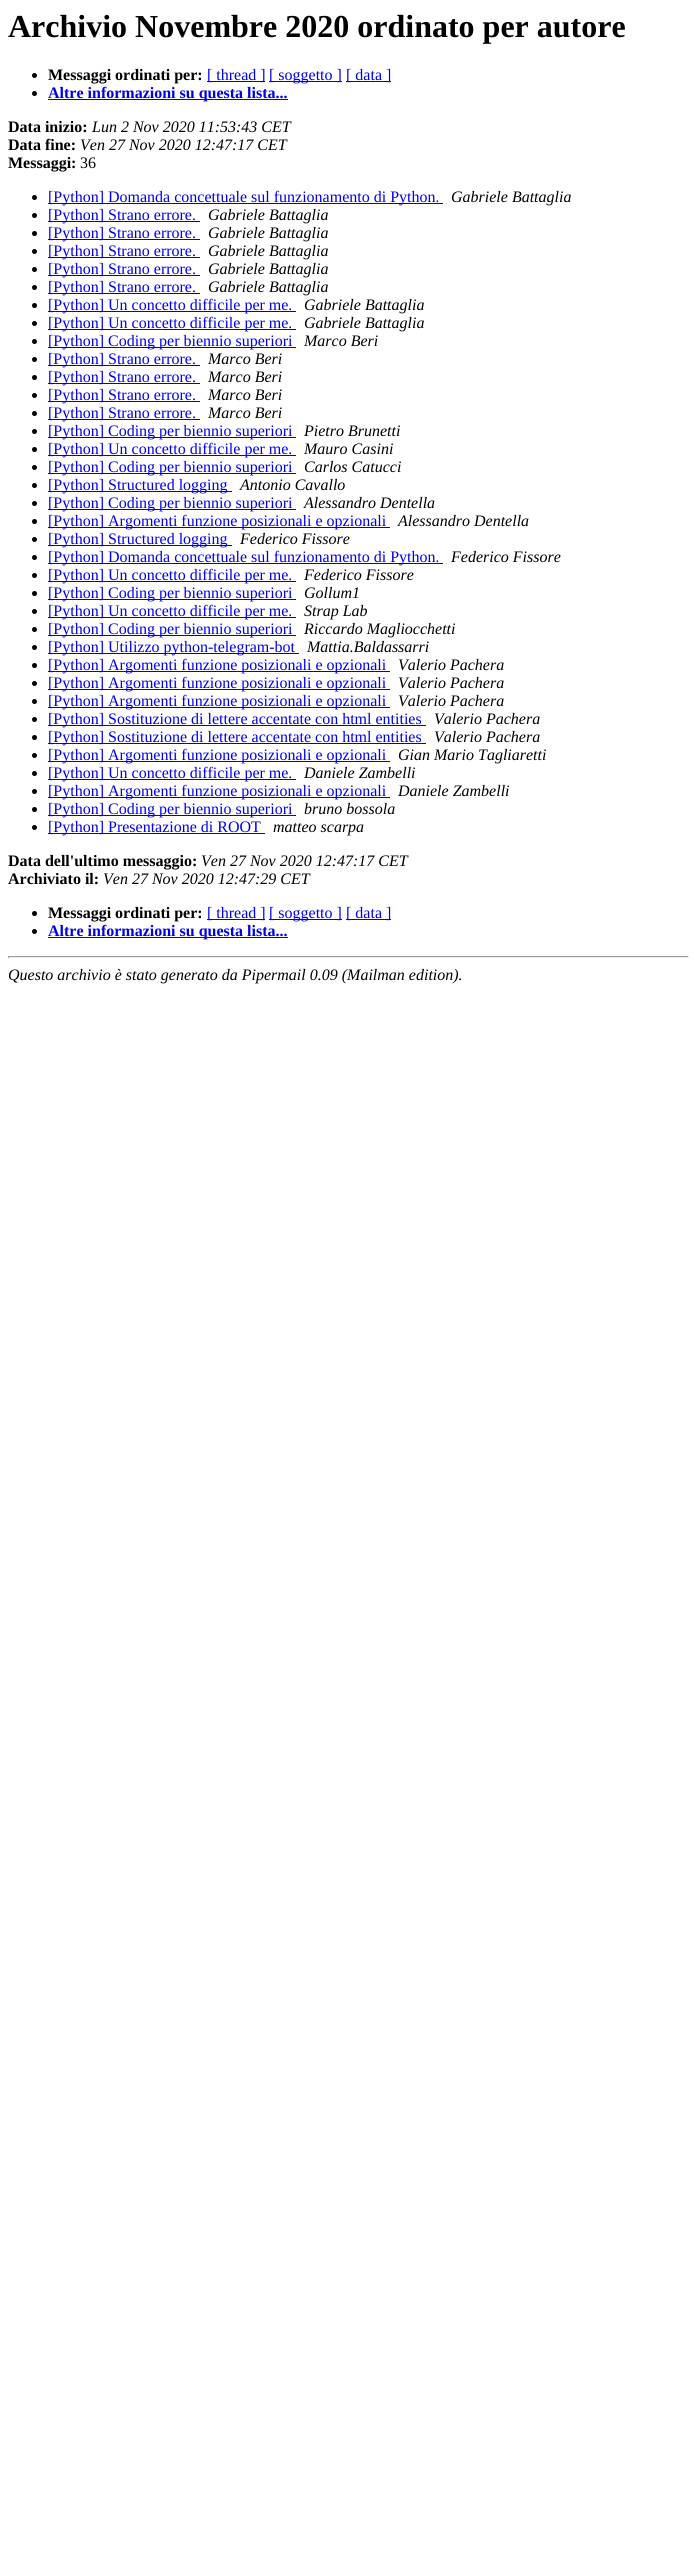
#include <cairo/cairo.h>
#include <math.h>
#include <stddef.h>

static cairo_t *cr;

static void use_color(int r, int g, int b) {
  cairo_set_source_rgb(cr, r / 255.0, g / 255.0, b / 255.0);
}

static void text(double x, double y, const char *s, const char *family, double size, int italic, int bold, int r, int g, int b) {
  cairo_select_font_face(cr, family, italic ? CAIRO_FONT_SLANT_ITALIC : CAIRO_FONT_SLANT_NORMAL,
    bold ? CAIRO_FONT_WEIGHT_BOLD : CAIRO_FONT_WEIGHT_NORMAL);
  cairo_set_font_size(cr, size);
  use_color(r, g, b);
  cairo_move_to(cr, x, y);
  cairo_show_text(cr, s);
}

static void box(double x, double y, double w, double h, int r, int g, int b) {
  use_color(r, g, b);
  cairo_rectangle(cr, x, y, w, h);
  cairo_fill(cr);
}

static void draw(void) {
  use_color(255, 255, 255);
  cairo_paint(cr);
  use_color(0, 0, 0);
  cairo_arc(cr, 34.5, 75.5, 2.5, 0, 2 * M_PI);
  cairo_fill(cr);
  box(207, 81, 58, 1, 0, 0, 238);
  box(269, 81, 73, 1, 0, 0, 238);
  box(346, 81, 45, 1, 0, 0, 238);
  use_color(0, 0, 0);
  cairo_arc(cr, 34.5, 93.5, 2.5, 0, 2 * M_PI);
  cairo_fill(cr);
  box(48, 99, 240, 1, 0, 0, 238);
  use_color(0, 0, 0);
  cairo_arc(cr, 34.5, 197.5, 2.5, 0, 2 * M_PI);
  cairo_fill(cr);
  box(48, 203, 395, 1, 0, 0, 238);
  use_color(0, 0, 0);
  cairo_arc(cr, 34.5, 215.5, 2.5, 0, 2 * M_PI);
  cairo_fill(cr);
  box(48, 221, 152, 1, 0, 0, 238);
  use_color(0, 0, 0);
  cairo_arc(cr, 34.5, 233.5, 2.5, 0, 2 * M_PI);
  cairo_fill(cr);
  box(48, 239, 152, 1, 0, 0, 238);
  use_color(0, 0, 0);
  cairo_arc(cr, 34.5, 251.5, 2.5, 0, 2 * M_PI);
  cairo_fill(cr);
  box(48, 257, 152, 1, 0, 0, 238);
  use_color(0, 0, 0);
  cairo_arc(cr, 34.5, 269.5, 2.5, 0, 2 * M_PI);
  cairo_fill(cr);
  box(48, 275, 152, 1, 0, 0, 238);
  use_color(0, 0, 0);
  cairo_arc(cr, 34.5, 287.5, 2.5, 0, 2 * M_PI);
  cairo_fill(cr);
  box(48, 293, 152, 1, 0, 0, 238);
  use_color(0, 0, 0);
  cairo_arc(cr, 34.5, 305.5, 2.5, 0, 2 * M_PI);
  cairo_fill(cr);
  box(48, 311, 248, 1, 0, 0, 238);
  use_color(0, 0, 0);
  cairo_arc(cr, 34.5, 323.5, 2.5, 0, 2 * M_PI);
  cairo_fill(cr);
  box(48, 329, 248, 1, 0, 0, 238);
  use_color(0, 0, 0);
  cairo_arc(cr, 34.5, 341.5, 2.5, 0, 2 * M_PI);
  cairo_fill(cr);
  box(48, 347, 248, 1, 0, 0, 238);
  use_color(0, 0, 0);
  cairo_arc(cr, 34.5, 359.5, 2.5, 0, 2 * M_PI);
  cairo_fill(cr);
  box(48, 365, 152, 1, 0, 0, 238);
  use_color(0, 0, 0);
  cairo_arc(cr, 34.5, 377.5, 2.5, 0, 2 * M_PI);
  cairo_fill(cr);
  box(48, 383, 152, 1, 0, 0, 238);
  use_color(0, 0, 0);
  cairo_arc(cr, 34.5, 395.5, 2.5, 0, 2 * M_PI);
  cairo_fill(cr);
  box(48, 401, 152, 1, 0, 0, 238);
  use_color(0, 0, 0);
  cairo_arc(cr, 34.5, 413.5, 2.5, 0, 2 * M_PI);
  cairo_fill(cr);
  box(48, 419, 152, 1, 0, 0, 238);
  use_color(0, 0, 0);
  cairo_arc(cr, 34.5, 431.5, 2.5, 0, 2 * M_PI);
  cairo_fill(cr);
  box(48, 437, 248, 1, 0, 0, 238);
  use_color(0, 0, 0);
  cairo_arc(cr, 34.5, 449.5, 2.5, 0, 2 * M_PI);
  cairo_fill(cr);
  box(48, 455, 248, 1, 0, 0, 238);
  use_color(0, 0, 0);
  cairo_arc(cr, 34.5, 467.5, 2.5, 0, 2 * M_PI);
  cairo_fill(cr);
  box(48, 473, 248, 1, 0, 0, 238);
  use_color(0, 0, 0);
  cairo_arc(cr, 34.5, 485.5, 2.5, 0, 2 * M_PI);
  cairo_fill(cr);
  box(48, 491, 184, 1, 0, 0, 238);
  use_color(0, 0, 0);
  cairo_arc(cr, 34.5, 503.5, 2.5, 0, 2 * M_PI);
  cairo_fill(cr);
  box(48, 509, 248, 1, 0, 0, 238);
  use_color(0, 0, 0);
  cairo_arc(cr, 34.5, 521.5, 2.5, 0, 2 * M_PI);
  cairo_fill(cr);
  box(48, 527, 342, 1, 0, 0, 238);
  use_color(0, 0, 0);
  cairo_arc(cr, 34.5, 539.5, 2.5, 0, 2 * M_PI);
  cairo_fill(cr);
  box(48, 545, 184, 1, 0, 0, 238);
  use_color(0, 0, 0);
  cairo_arc(cr, 34.5, 557.5, 2.5, 0, 2 * M_PI);
  cairo_fill(cr);
  box(48, 563, 395, 1, 0, 0, 238);
  use_color(0, 0, 0);
  cairo_arc(cr, 34.5, 575.5, 2.5, 0, 2 * M_PI);
  cairo_fill(cr);
  box(48, 581, 248, 1, 0, 0, 238);
  use_color(0, 0, 0);
  cairo_arc(cr, 34.5, 593.5, 2.5, 0, 2 * M_PI);
  cairo_fill(cr);
  box(48, 599, 248, 1, 0, 0, 238);
  use_color(0, 0, 0);
  cairo_arc(cr, 34.5, 611.5, 2.5, 0, 2 * M_PI);
  cairo_fill(cr);
  box(48, 617, 248, 1, 0, 0, 238);
  use_color(0, 0, 0);
  cairo_arc(cr, 34.5, 629.5, 2.5, 0, 2 * M_PI);
  cairo_fill(cr);
  box(48, 635, 248, 1, 0, 0, 238);
  use_color(0, 0, 0);
  cairo_arc(cr, 34.5, 647.5, 2.5, 0, 2 * M_PI);
  cairo_fill(cr);
  box(48, 653, 251, 1, 0, 0, 238);
  use_color(0, 0, 0);
  cairo_arc(cr, 34.5, 665.5, 2.5, 0, 2 * M_PI);
  cairo_fill(cr);
  box(48, 671, 342, 1, 0, 0, 238);
  use_color(0, 0, 0);
  cairo_arc(cr, 34.5, 683.5, 2.5, 0, 2 * M_PI);
  cairo_fill(cr);
  box(48, 689, 342, 1, 0, 0, 238);
  use_color(0, 0, 0);
  cairo_arc(cr, 34.5, 701.5, 2.5, 0, 2 * M_PI);
  cairo_fill(cr);
  box(48, 707, 342, 1, 0, 0, 238);
  use_color(0, 0, 0);
  cairo_arc(cr, 34.5, 719.5, 2.5, 0, 2 * M_PI);
  cairo_fill(cr);
  box(48, 725, 378, 1, 0, 0, 238);
  use_color(0, 0, 0);
  cairo_arc(cr, 34.5, 737.5, 2.5, 0, 2 * M_PI);
  cairo_fill(cr);
  box(48, 743, 378, 1, 0, 0, 238);
  use_color(0, 0, 0);
  cairo_arc(cr, 34.5, 755.5, 2.5, 0, 2 * M_PI);
  cairo_fill(cr);
  box(48, 761, 342, 1, 0, 0, 238);
  use_color(0, 0, 0);
  cairo_arc(cr, 34.5, 773.5, 2.5, 0, 2 * M_PI);
  cairo_fill(cr);
  box(48, 779, 248, 1, 0, 0, 238);
  use_color(0, 0, 0);
  cairo_arc(cr, 34.5, 791.5, 2.5, 0, 2 * M_PI);
  cairo_fill(cr);
  box(48, 797, 342, 1, 0, 0, 238);
  use_color(0, 0, 0);
  cairo_arc(cr, 34.5, 809.5, 2.5, 0, 2 * M_PI);
  cairo_fill(cr);
  box(48, 815, 248, 1, 0, 0, 238);
  use_color(0, 0, 0);
  cairo_arc(cr, 34.5, 827.5, 2.5, 0, 2 * M_PI);
  cairo_fill(cr);
  box(48, 833, 217, 1, 0, 0, 238);
  use_color(0, 0, 0);
  cairo_arc(cr, 34.5, 913.5, 2.5, 0, 2 * M_PI);
  cairo_fill(cr);
  box(207, 919, 58, 1, 0, 0, 238);
  box(269, 919, 73, 1, 0, 0, 238);
  box(346, 919, 45, 1, 0, 0, 238);
  use_color(0, 0, 0);
  cairo_arc(cr, 34.5, 931.5, 2.5, 0, 2 * M_PI);
  cairo_fill(cr);
  box(48, 937, 240, 1, 0, 0, 238);
  box(8, 956, 681, 1, 159, 159, 159);
  box(688, 956, 1, 2, 238, 238, 238);
  box(8, 957, 681, 1, 238, 238, 238);
  box(8, 956, 1, 2, 159, 159, 159);
  text(8, 37, "Archivio Novembre 2020 ordinato per autore", "Liberation Serif", 32, 0, 1, 0, 0, 0);
  text(48, 80, "Messaggi ordinati per:", "Liberation Serif", 16, 0, 1, 0, 0, 0);
  text(207, 80, "[ thread ]", "Liberation Serif", 16, 0, 0, 0, 0, 238);
  text(269, 80, "[ soggetto ]", "Liberation Serif", 16, 0, 0, 0, 0, 238);
  text(346, 80, "[ data ]", "Liberation Serif", 16, 0, 0, 0, 0, 238);
  text(48, 98, "Altre informazioni su questa lista...", "Liberation Serif", 16, 0, 1, 0, 0, 238);
  text(8, 132, "Data inizio:", "Liberation Serif", 16, 0, 1, 0, 0, 0);
  text(92, 132, "Lun 2 Nov 2020 11:53:43 CET", "Liberation Serif", 16, 1, 0, 0, 0, 0);
  text(8, 150, "Data fine:", "Liberation Serif", 16, 0, 1, 0, 0, 0);
  text(80, 150, "Ven 27 Nov 2020 12:47:17 CET", "Liberation Serif", 16, 1, 0, 0, 0, 0);
  text(8, 168, "Messaggi:", "Liberation Serif", 16, 0, 1, 0, 0, 0);
  text(80, 168, "36", "Liberation Serif", 16, 0, 0, 0, 0, 0);
  text(48, 202, "[Python] Domanda concettuale sul funzionamento di Python.", "Liberation Serif", 16, 0, 0, 0, 0, 238);
  text(451, 202, "Gabriele Battaglia", "Liberation Serif", 16, 1, 0, 0, 0, 0);
  text(48, 220, "[Python] Strano errore.", "Liberation Serif", 16, 0, 0, 0, 0, 238);
  text(208, 220, "Gabriele Battaglia", "Liberation Serif", 16, 1, 0, 0, 0, 0);
  text(48, 238, "[Python] Strano errore.", "Liberation Serif", 16, 0, 0, 0, 0, 238);
  text(208, 238, "Gabriele Battaglia", "Liberation Serif", 16, 1, 0, 0, 0, 0);
  text(48, 256, "[Python] Strano errore.", "Liberation Serif", 16, 0, 0, 0, 0, 238);
  text(208, 256, "Gabriele Battaglia", "Liberation Serif", 16, 1, 0, 0, 0, 0);
  text(48, 274, "[Python] Strano errore.", "Liberation Serif", 16, 0, 0, 0, 0, 238);
  text(208, 274, "Gabriele Battaglia", "Liberation Serif", 16, 1, 0, 0, 0, 0);
  text(48, 292, "[Python] Strano errore.", "Liberation Serif", 16, 0, 0, 0, 0, 238);
  text(208, 292, "Gabriele Battaglia", "Liberation Serif", 16, 1, 0, 0, 0, 0);
  text(48, 310, "[Python] Un concetto difficile per me.", "Liberation Serif", 16, 0, 0, 0, 0, 238);
  text(304, 310, "Gabriele Battaglia", "Liberation Serif", 16, 1, 0, 0, 0, 0);
  text(48, 328, "[Python] Un concetto difficile per me.", "Liberation Serif", 16, 0, 0, 0, 0, 238);
  text(304, 328, "Gabriele Battaglia", "Liberation Serif", 16, 1, 0, 0, 0, 0);
  text(48, 346, "[Python] Coding per biennio superiori", "Liberation Serif", 16, 0, 0, 0, 0, 238);
  text(304, 346, "Marco Beri", "Liberation Serif", 16, 1, 0, 0, 0, 0);
  text(48, 364, "[Python] Strano errore.", "Liberation Serif", 16, 0, 0, 0, 0, 238);
  text(208, 364, "Marco Beri", "Liberation Serif", 16, 1, 0, 0, 0, 0);
  text(48, 382, "[Python] Strano errore.", "Liberation Serif", 16, 0, 0, 0, 0, 238);
  text(208, 382, "Marco Beri", "Liberation Serif", 16, 1, 0, 0, 0, 0);
  text(48, 400, "[Python] Strano errore.", "Liberation Serif", 16, 0, 0, 0, 0, 238);
  text(208, 400, "Marco Beri", "Liberation Serif", 16, 1, 0, 0, 0, 0);
  text(48, 418, "[Python] Strano errore.", "Liberation Serif", 16, 0, 0, 0, 0, 238);
  text(208, 418, "Marco Beri", "Liberation Serif", 16, 1, 0, 0, 0, 0);
  text(48, 436, "[Python] Coding per biennio superiori", "Liberation Serif", 16, 0, 0, 0, 0, 238);
  text(304, 436, "Pietro Brunetti", "Liberation Serif", 16, 1, 0, 0, 0, 0);
  text(48, 454, "[Python] Un concetto difficile per me.", "Liberation Serif", 16, 0, 0, 0, 0, 238);
  text(304, 454, "Mauro Casini", "Liberation Serif", 16, 1, 0, 0, 0, 0);
  text(48, 472, "[Python] Coding per biennio superiori", "Liberation Serif", 16, 0, 0, 0, 0, 238);
  text(304, 472, "Carlos Catucci", "Liberation Serif", 16, 1, 0, 0, 0, 0);
  text(48, 490, "[Python] Structured logging", "Liberation Serif", 16, 0, 0, 0, 0, 238);
  text(240, 490, "Antonio Cavallo", "Liberation Serif", 16, 1, 0, 0, 0, 0);
  text(48, 508, "[Python] Coding per biennio superiori", "Liberation Serif", 16, 0, 0, 0, 0, 238);
  text(304, 508, "Alessandro Dentella", "Liberation Serif", 16, 1, 0, 0, 0, 0);
  text(48, 526, "[Python] Argomenti funzione posizionali e opzionali", "Liberation Serif", 16, 0, 0, 0, 0, 238);
  text(398, 526, "Alessandro Dentella", "Liberation Serif", 16, 1, 0, 0, 0, 0);
  text(48, 544, "[Python] Structured logging", "Liberation Serif", 16, 0, 0, 0, 0, 238);
  text(240, 544, "Federico Fissore", "Liberation Serif", 16, 1, 0, 0, 0, 0);
  text(48, 562, "[Python] Domanda concettuale sul funzionamento di Python.", "Liberation Serif", 16, 0, 0, 0, 0, 238);
  text(451, 562, "Federico Fissore", "Liberation Serif", 16, 1, 0, 0, 0, 0);
  text(48, 580, "[Python] Un concetto difficile per me.", "Liberation Serif", 16, 0, 0, 0, 0, 238);
  text(304, 580, "Federico Fissore", "Liberation Serif", 16, 1, 0, 0, 0, 0);
  text(48, 598, "[Python] Coding per biennio superiori", "Liberation Serif", 16, 0, 0, 0, 0, 238);
  text(304, 598, "Gollum1", "Liberation Serif", 16, 1, 0, 0, 0, 0);
  text(48, 616, "[Python] Un concetto difficile per me.", "Liberation Serif", 16, 0, 0, 0, 0, 238);
  text(304, 616, "Strap Lab", "Liberation Serif", 16, 1, 0, 0, 0, 0);
  text(48, 634, "[Python] Coding per biennio superiori", "Liberation Serif", 16, 0, 0, 0, 0, 238);
  text(304, 634, "Riccardo Magliocchetti", "Liberation Serif", 16, 1, 0, 0, 0, 0);
  text(48, 652, "[Python] Utilizzo python-telegram-bot", "Liberation Serif", 16, 0, 0, 0, 0, 238);
  text(307, 652, "Mattia.Baldassarri", "Liberation Serif", 16, 1, 0, 0, 0, 0);
  text(48, 670, "[Python] Argomenti funzione posizionali e opzionali", "Liberation Serif", 16, 0, 0, 0, 0, 238);
  text(398, 670, "Valerio Pachera", "Liberation Serif", 16, 1, 0, 0, 0, 0);
  text(48, 688, "[Python] Argomenti funzione posizionali e opzionali", "Liberation Serif", 16, 0, 0, 0, 0, 238);
  text(398, 688, "Valerio Pachera", "Liberation Serif", 16, 1, 0, 0, 0, 0);
  text(48, 706, "[Python] Argomenti funzione posizionali e opzionali", "Liberation Serif", 16, 0, 0, 0, 0, 238);
  text(398, 706, "Valerio Pachera", "Liberation Serif", 16, 1, 0, 0, 0, 0);
  text(48, 724, "[Python] Sostituzione di lettere accentate con html entities", "Liberation Serif", 16, 0, 0, 0, 0, 238);
  text(434, 724, "Valerio Pachera", "Liberation Serif", 16, 1, 0, 0, 0, 0);
  text(48, 742, "[Python] Sostituzione di lettere accentate con html entities", "Liberation Serif", 16, 0, 0, 0, 0, 238);
  text(434, 742, "Valerio Pachera", "Liberation Serif", 16, 1, 0, 0, 0, 0);
  text(48, 760, "[Python] Argomenti funzione posizionali e opzionali", "Liberation Serif", 16, 0, 0, 0, 0, 238);
  text(398, 760, "Gian Mario Tagliaretti", "Liberation Serif", 16, 1, 0, 0, 0, 0);
  text(48, 778, "[Python] Un concetto difficile per me.", "Liberation Serif", 16, 0, 0, 0, 0, 238);
  text(304, 778, "Daniele Zambelli", "Liberation Serif", 16, 1, 0, 0, 0, 0);
  text(48, 796, "[Python] Argomenti funzione posizionali e opzionali", "Liberation Serif", 16, 0, 0, 0, 0, 238);
  text(398, 796, "Daniele Zambelli", "Liberation Serif", 16, 1, 0, 0, 0, 0);
  text(48, 814, "[Python] Coding per biennio superiori", "Liberation Serif", 16, 0, 0, 0, 0, 238);
  text(304, 814, "bruno bossola", "Liberation Serif", 16, 1, 0, 0, 0, 0);
  text(48, 832, "[Python] Presentazione di ROOT", "Liberation Serif", 16, 0, 0, 0, 0, 238);
  text(273, 832, "matteo scarpa", "Liberation Serif", 16, 1, 0, 0, 0, 0);
  text(8, 866, "Data dell'ultimo messaggio:", "Liberation Serif", 16, 0, 1, 0, 0, 0);
  text(201, 866, "Ven 27 Nov 2020 12:47:17 CET", "Liberation Serif", 16, 1, 0, 0, 0, 0);
  text(8, 884, "Archiviato il:", "Liberation Serif", 16, 0, 1, 0, 0, 0);
  text(103, 884, "Ven 27 Nov 2020 12:47:29 CET", "Liberation Serif", 16, 1, 0, 0, 0, 0);
  text(48, 918, "Messaggi ordinati per:", "Liberation Serif", 16, 0, 1, 0, 0, 0);
  text(207, 918, "[ thread ]", "Liberation Serif", 16, 0, 0, 0, 0, 238);
  text(269, 918, "[ soggetto ]", "Liberation Serif", 16, 0, 0, 0, 0, 238);
  text(346, 918, "[ data ]", "Liberation Serif", 16, 0, 0, 0, 0, 238);
  text(48, 936, "Altre informazioni su questa lista...", "Liberation Serif", 16, 0, 1, 0, 0, 238);
  text(8, 980, "Questo archivio è stato generato da Pipermail 0.09 (Mailman edition).", "Liberation Serif", 16, 1, 0, 0, 0, 0);
}

int main(void) {
  cairo_surface_t *surface = cairo_image_surface_create(CAIRO_FORMAT_RGB24, 697, 2565);
  cr = cairo_create(surface);
  cairo_font_options_t *options = cairo_font_options_create();
  cairo_font_options_set_hint_metrics(options, CAIRO_HINT_METRICS_OFF);
  cairo_font_options_set_hint_style(options, CAIRO_HINT_STYLE_NONE);
  cairo_set_font_options(cr, options);
  cairo_set_miter_limit(cr, 4);
  draw();
  cairo_surface_write_to_png(surface, "out.png");
  cairo_font_options_destroy(options);
  cairo_destroy(cr);
  cairo_surface_destroy(surface);
  return 0;
}
